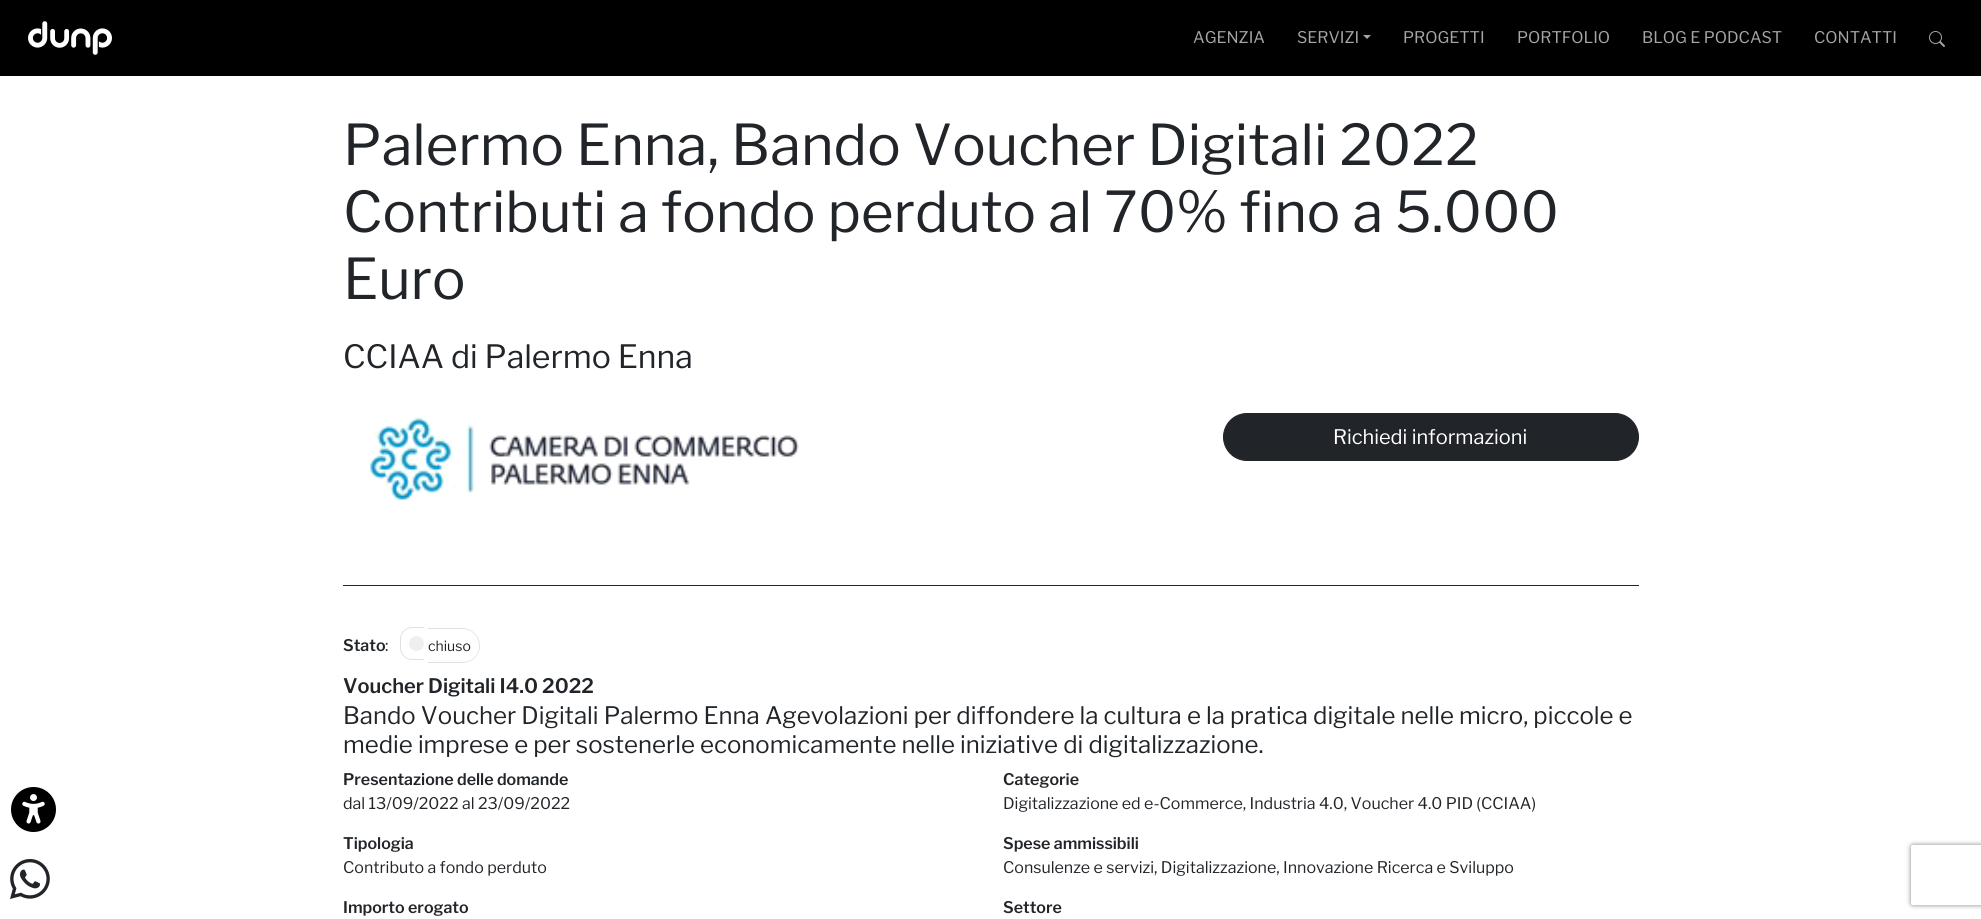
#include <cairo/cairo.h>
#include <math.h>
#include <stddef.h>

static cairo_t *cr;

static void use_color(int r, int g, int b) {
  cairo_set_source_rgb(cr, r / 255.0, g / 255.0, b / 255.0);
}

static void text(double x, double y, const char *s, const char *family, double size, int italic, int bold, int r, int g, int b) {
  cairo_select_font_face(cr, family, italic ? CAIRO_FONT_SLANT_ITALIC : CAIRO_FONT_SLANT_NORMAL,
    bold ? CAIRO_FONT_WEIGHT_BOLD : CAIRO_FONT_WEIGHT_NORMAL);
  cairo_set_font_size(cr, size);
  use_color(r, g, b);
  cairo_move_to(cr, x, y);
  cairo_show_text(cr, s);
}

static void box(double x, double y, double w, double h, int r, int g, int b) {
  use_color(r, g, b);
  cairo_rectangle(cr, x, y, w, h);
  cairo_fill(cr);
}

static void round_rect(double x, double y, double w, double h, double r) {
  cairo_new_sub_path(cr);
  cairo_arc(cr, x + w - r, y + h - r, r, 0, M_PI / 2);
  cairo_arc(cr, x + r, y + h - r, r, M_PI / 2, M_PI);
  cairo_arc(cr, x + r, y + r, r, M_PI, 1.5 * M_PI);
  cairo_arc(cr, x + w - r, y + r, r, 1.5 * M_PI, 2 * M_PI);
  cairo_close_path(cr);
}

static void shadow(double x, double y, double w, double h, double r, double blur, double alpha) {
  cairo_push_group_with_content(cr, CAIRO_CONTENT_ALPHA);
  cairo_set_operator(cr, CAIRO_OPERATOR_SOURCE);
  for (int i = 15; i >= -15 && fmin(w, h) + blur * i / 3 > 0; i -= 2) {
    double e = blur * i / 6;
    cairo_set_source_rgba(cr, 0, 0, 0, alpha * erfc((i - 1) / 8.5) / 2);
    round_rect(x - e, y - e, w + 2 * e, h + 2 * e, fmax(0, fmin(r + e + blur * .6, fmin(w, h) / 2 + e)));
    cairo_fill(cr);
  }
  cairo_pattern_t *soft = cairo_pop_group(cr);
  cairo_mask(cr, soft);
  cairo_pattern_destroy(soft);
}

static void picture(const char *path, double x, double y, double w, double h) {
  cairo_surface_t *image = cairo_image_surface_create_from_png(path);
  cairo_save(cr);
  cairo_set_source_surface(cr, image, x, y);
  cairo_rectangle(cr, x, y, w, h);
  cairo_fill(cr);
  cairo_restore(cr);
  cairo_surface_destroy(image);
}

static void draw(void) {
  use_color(255, 255, 255);
  cairo_paint(cr);
  picture("img_01.png", 11, 787, 45, 45);
  box(0, 0, 1981, 76, 0, 0, 0);
  picture("img_02.png", 28, 21, 84, 34);
  use_color(166, 166, 166);
  cairo_new_path(cr);
  cairo_move_to(cr, 1363, 35);
  cairo_line_to(cr, 1371, 35);
  cairo_line_to(cr, 1367, 39);
  cairo_close_path(cr);
  cairo_fill(cr);
  picture("img_03.png", 1929, 31, 16, 16);
  picture("img_04.png", 10, 859, 40, 40);
  picture("img_05.png", 370, 416, 429, 84);
  use_color(33, 37, 41);
  round_rect(1223.5, 413.5, 415, 47, 23.5);
  cairo_fill_preserve(cr);
  cairo_set_line_width(cr, 1);
  cairo_stroke(cr);
  box(343, 585, 1296, 1, 33, 37, 41);
  use_color(222, 226, 230);
  cairo_set_fill_rule(cr, CAIRO_FILL_RULE_EVEN_ODD);
  cairo_new_path(cr);
  cairo_move_to(cr, 412, 627);
  cairo_line_to(cr, 424, 627);
  cairo_line_to(cr, 424, 660);
  cairo_line_to(cr, 412, 660);
  cairo_curve_to(cr, 405.5, 660, 400, 654.5, 400, 648);
  cairo_line_to(cr, 400, 639);
  cairo_curve_to(cr, 400, 632.5, 405.5, 627, 412, 627);
  cairo_close_path(cr);
  cairo_move_to(cr, 412, 628);
  cairo_line_to(cr, 424, 628);
  cairo_line_to(cr, 424, 659);
  cairo_line_to(cr, 412, 659);
  cairo_curve_to(cr, 406, 659, 401, 654, 401, 648);
  cairo_line_to(cr, 401, 639);
  cairo_curve_to(cr, 401, 633, 406, 628, 412, 628);
  cairo_close_path(cr);
  cairo_fill(cr);
  cairo_new_path(cr);
  cairo_move_to(cr, 428, 628);
  cairo_line_to(cr, 462, 628);
  cairo_curve_to(cr, 472, 628, 480, 636, 480, 646);
  cairo_curve_to(cr, 480, 655, 472, 663, 462, 663);
  cairo_line_to(cr, 428, 663);
  cairo_close_path(cr);
  cairo_move_to(cr, 428, 629);
  cairo_line_to(cr, 462, 629);
  cairo_curve_to(cr, 472, 629, 479, 636, 479, 646);
  cairo_curve_to(cr, 479, 655, 472, 662, 462, 662);
  cairo_line_to(cr, 428, 662);
  cairo_close_path(cr);
  cairo_fill(cr);
  use_color(239, 239, 239);
  cairo_arc(cr, 416.5, 643.5, 7.5, 0, 2 * M_PI);
  cairo_fill(cr);
  cairo_save(cr);
  cairo_new_path(cr);
  cairo_move_to(cr, 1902, 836);
  cairo_line_to(cr, 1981, 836);
  cairo_line_to(cr, 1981, 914);
  cairo_line_to(cr, 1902, 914);
  cairo_close_path(cr);
  cairo_move_to(cr, 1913, 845);
  cairo_line_to(cr, 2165, 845);
  cairo_curve_to(cr, 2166, 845, 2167, 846, 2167, 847);
  cairo_line_to(cr, 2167, 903);
  cairo_curve_to(cr, 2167, 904, 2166, 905, 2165, 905);
  cairo_line_to(cr, 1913, 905);
  cairo_curve_to(cr, 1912, 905, 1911, 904, 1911, 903);
  cairo_line_to(cr, 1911, 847);
  cairo_curve_to(cr, 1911, 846, 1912, 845, 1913, 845);
  cairo_close_path(cr);
  cairo_clip(cr);
  use_color(128, 128, 128);
  shadow(1911, 845, 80, 60, 2, 2.5, 1);
  cairo_restore(cr);
  text(1193, 43, "AGENZIA", "Libre Franklin", 16, 0, 0, 166, 166, 166);
  text(1297, 43, "SERVIZI", "Libre Franklin", 16, 0, 0, 166, 166, 166);
  text(1403, 43, "PROGETTI", "Libre Franklin", 16, 0, 0, 166, 166, 166);
  text(1517, 43, "PORTFOLIO", "Libre Franklin", 16, 0, 0, 166, 166, 166);
  text(1642, 43, "BLOG E PODCAST", "Libre Franklin", 16, 0, 0, 166, 166, 166);
  text(1814, 43, "CONTATTI", "Libre Franklin", 16, 0, 0, 166, 166, 166);
  text(343, 165, "Palermo Enna, Bando Voucher Digitali 2022", "Libre Franklin", 56, 0, 0, 33, 37, 41);
  text(343, 232, "Contributi a fondo perduto al 70% fino a 5.000", "Libre Franklin", 56, 0, 0, 33, 37, 41);
  text(343, 299, "Euro", "Libre Franklin", 56, 0, 0, 33, 37, 41);
  text(343, 368, "CCIAA di Palermo Enna", "Libre Franklin", 32, 0, 0, 33, 37, 41);
  text(1333, 444, "Richiedi informazioni", "Libre Franklin", 20, 0, 0, 255, 255, 255);
  text(343, 651, "Stato", "Libre Franklin SemiBold", 16, 0, 0, 33, 37, 41);
  text(385, 651, ":", "Libre Franklin", 16, 0, 0, 33, 37, 41);
  text(428, 651, "chiuso", "Libre Franklin", 14, 0, 0, 33, 37, 41);
  text(343, 693, "Voucher Digitali I4.0 2022", "Libre Franklin SemiBold", 20, 0, 0, 33, 37, 41);
  text(343, 724, "Bando Voucher Digitali Palermo Enna Agevolazioni per diffondere la cultura e la pratica digitale nelle micro, piccole e", "Libre Franklin", 24, 0, 0, 33, 37, 41);
  text(343, 753, "medie imprese e per sostenerle economicamente nelle iniziative di digitalizzazione.", "Libre Franklin", 24, 0, 0, 33, 37, 41);
  text(343, 785, "Presentazione delle domande", "Libre Franklin SemiBold", 16, 0, 0, 33, 37, 41);
  text(343, 809, "dal 13/09/2022 al 23/09/2022", "Libre Franklin", 16, 0, 0, 33, 37, 41);
  text(343, 849, "Tipologia", "Libre Franklin SemiBold", 16, 0, 0, 33, 37, 41);
  text(343, 873, "Contributo a fondo perduto", "Libre Franklin", 16, 0, 0, 33, 37, 41);
  text(343, 913, "Importo erogato", "Libre Franklin SemiBold", 16, 0, 0, 33, 37, 41);
  text(1003, 785, "Categorie", "Libre Franklin SemiBold", 16, 0, 0, 33, 37, 41);
  text(1003, 809, "Digitalizzazione ed e-Commerce, Industria 4.0, Voucher 4.0 PID (CCIAA)", "Libre Franklin", 16, 0, 0, 33, 37, 41);
  text(1003, 849, "Spese ammissibili", "Libre Franklin SemiBold", 16, 0, 0, 33, 37, 41);
  text(1003, 873, "Consulenze e servizi, Digitalizzazione, Innovazione Ricerca e Sviluppo", "Libre Franklin", 16, 0, 0, 33, 37, 41);
  text(1003, 913, "Settore", "Libre Franklin SemiBold", 16, 0, 0, 33, 37, 41);
}

int main(void) {
  cairo_surface_t *surface = cairo_image_surface_create(CAIRO_FORMAT_RGB24, 1981, 919);
  cr = cairo_create(surface);
  cairo_font_options_t *options = cairo_font_options_create();
  cairo_font_options_set_hint_metrics(options, CAIRO_HINT_METRICS_OFF);
  cairo_font_options_set_hint_style(options, CAIRO_HINT_STYLE_NONE);
  cairo_set_font_options(cr, options);
  cairo_set_miter_limit(cr, 4);
  draw();
  cairo_surface_write_to_png(surface, "out.png");
  cairo_font_options_destroy(options);
  cairo_destroy(cr);
  cairo_surface_destroy(surface);
  return 0;
}
